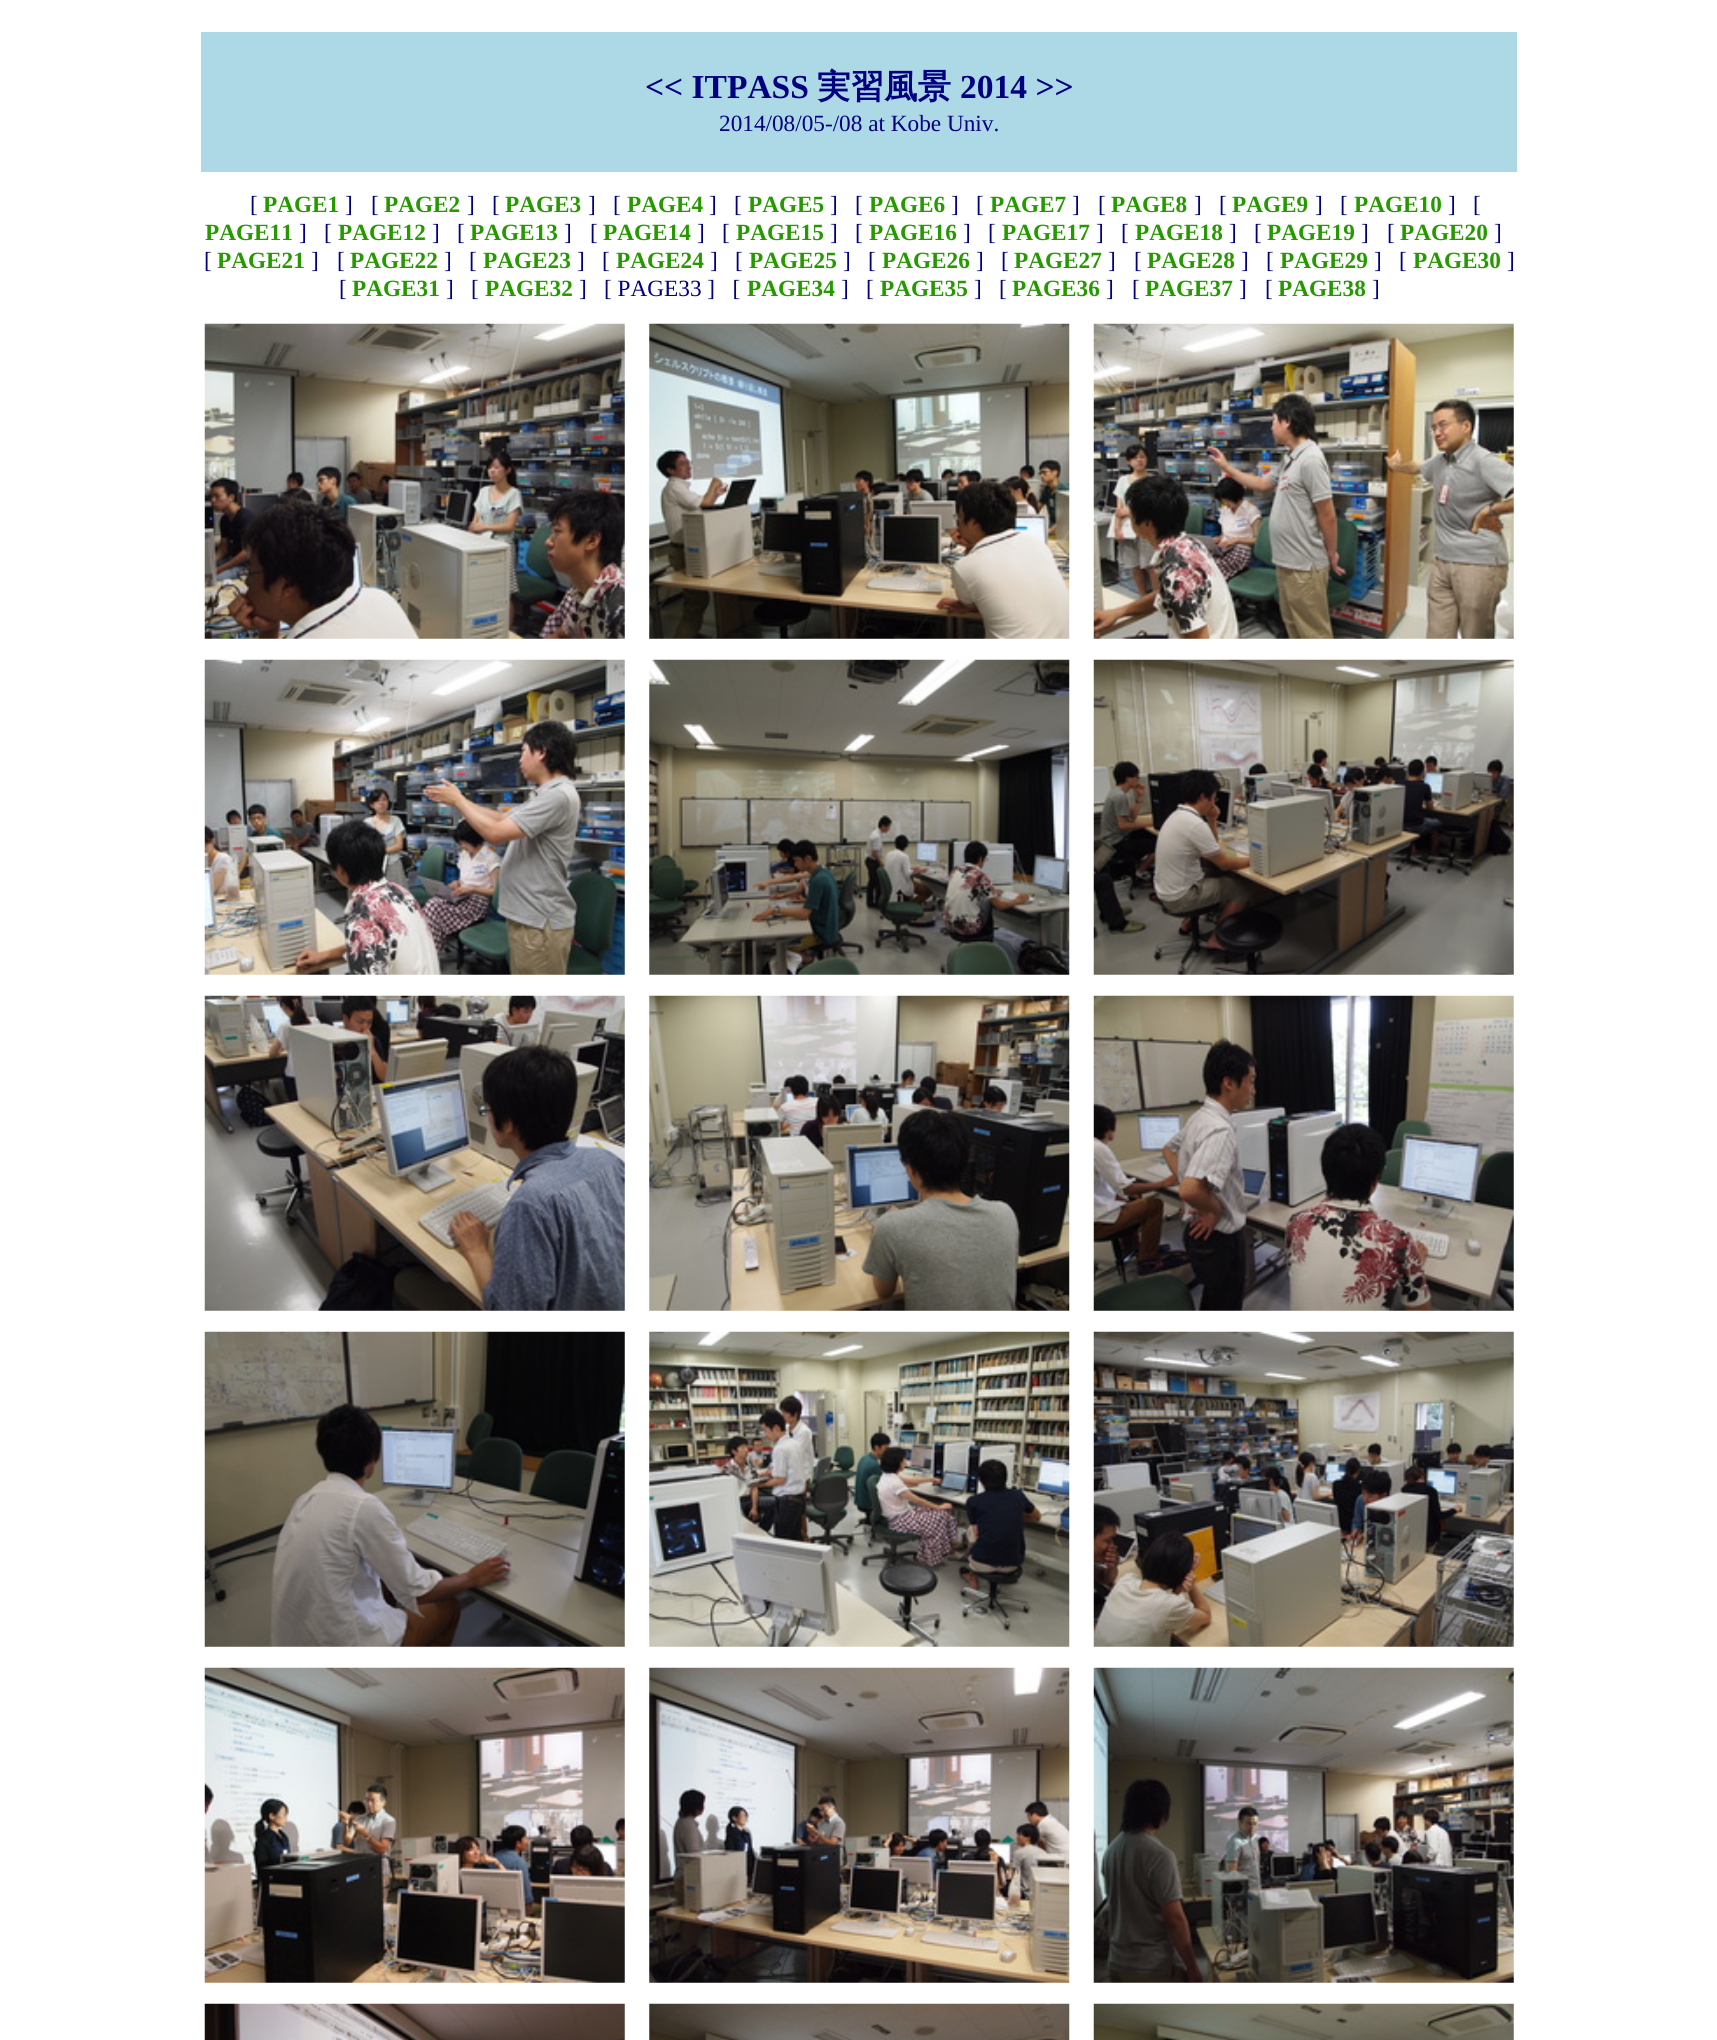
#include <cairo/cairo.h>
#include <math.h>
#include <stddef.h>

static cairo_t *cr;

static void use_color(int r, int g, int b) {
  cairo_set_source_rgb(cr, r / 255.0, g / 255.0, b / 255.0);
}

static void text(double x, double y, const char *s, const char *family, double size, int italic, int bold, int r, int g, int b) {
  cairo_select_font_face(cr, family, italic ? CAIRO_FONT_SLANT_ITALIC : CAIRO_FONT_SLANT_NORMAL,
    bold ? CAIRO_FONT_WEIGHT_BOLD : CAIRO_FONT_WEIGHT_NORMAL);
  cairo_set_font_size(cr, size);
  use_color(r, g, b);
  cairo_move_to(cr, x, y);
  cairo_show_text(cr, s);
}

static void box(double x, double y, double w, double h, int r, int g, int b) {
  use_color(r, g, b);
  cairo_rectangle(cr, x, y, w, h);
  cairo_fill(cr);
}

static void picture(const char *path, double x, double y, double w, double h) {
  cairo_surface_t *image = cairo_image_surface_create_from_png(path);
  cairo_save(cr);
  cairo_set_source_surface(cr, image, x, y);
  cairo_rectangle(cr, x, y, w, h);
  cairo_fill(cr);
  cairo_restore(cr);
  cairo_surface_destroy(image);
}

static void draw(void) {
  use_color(255, 255, 255);
  cairo_paint(cr);
  box(201, 32, 1316, 140, 173, 216, 230);
  picture("img_01.png", 204, 323, 421, 316);
  picture("img_02.png", 649, 323, 421, 316);
  picture("img_03.png", 1093, 323, 421, 316);
  picture("img_04.png", 204, 659, 421, 316);
  picture("img_05.png", 649, 659, 421, 316);
  picture("img_06.png", 1093, 659, 421, 316);
  picture("img_07.png", 204, 995, 421, 316);
  picture("img_08.png", 649, 995, 421, 316);
  picture("img_09.png", 1093, 995, 421, 316);
  picture("img_10.png", 204, 1331, 421, 316);
  picture("img_11.png", 649, 1331, 421, 316);
  picture("img_12.png", 1093, 1331, 421, 316);
  picture("img_13.png", 204, 1667, 421, 316);
  picture("img_14.png", 649, 1667, 421, 316);
  picture("img_15.png", 1093, 1667, 421, 316);
  picture("img_16.png", 204, 2003, 421, 37);
  picture("img_17.png", 649, 2003, 421, 37);
  picture("img_18.png", 1093, 2003, 421, 37);
  text(645, 98, "<< ITPASS", "Liberation Serif", 33.5, 0, 1, 0, 0, 128);
  text(817, 98, "実習風景", "WenQuanYi Zen Hei", 33.5, 0, 1, 0, 0, 128);
  text(960, 98, "2014 >>", "Liberation Serif", 33.5, 0, 1, 0, 0, 128);
  text(719, 131, "2014/08/05-/08 at Kobe Univ.", "Liberation Serif", 23.25, 0, 0, 0, 0, 128);
  text(250, 212, "[", "Liberation Serif", 23.25, 0, 0, 0, 0, 128);
  text(263, 212, "PAGE1", "Liberation Serif", 23.25, 0, 1, 38, 153, 0);
  text(345, 212, "]", "Liberation Serif", 23.25, 0, 0, 0, 0, 128);
  text(371, 212, "[", "Liberation Serif", 23.25, 0, 0, 0, 0, 128);
  text(384, 212, "PAGE2", "Liberation Serif", 23.25, 0, 1, 38, 153, 0);
  text(467, 212, "]", "Liberation Serif", 23.25, 0, 0, 0, 0, 128);
  text(492, 212, "[", "Liberation Serif", 23.25, 0, 0, 0, 0, 128);
  text(505, 212, "PAGE3", "Liberation Serif", 23.25, 0, 1, 38, 153, 0);
  text(588, 212, "]", "Liberation Serif", 23.25, 0, 0, 0, 0, 128);
  text(613, 212, "[", "Liberation Serif", 23.25, 0, 0, 0, 0, 128);
  text(627, 212, "PAGE4", "Liberation Serif", 23.25, 0, 1, 38, 153, 0);
  text(709, 212, "]", "Liberation Serif", 23.25, 0, 0, 0, 0, 128);
  text(734, 212, "[", "Liberation Serif", 23.25, 0, 0, 0, 0, 128);
  text(748, 212, "PAGE5", "Liberation Serif", 23.25, 0, 1, 38, 153, 0);
  text(830, 212, "]", "Liberation Serif", 23.25, 0, 0, 0, 0, 128);
  text(855, 212, "[", "Liberation Serif", 23.25, 0, 0, 0, 0, 128);
  text(869, 212, "PAGE6", "Liberation Serif", 23.25, 0, 1, 38, 153, 0);
  text(951, 212, "]", "Liberation Serif", 23.25, 0, 0, 0, 0, 128);
  text(976, 212, "[", "Liberation Serif", 23.25, 0, 0, 0, 0, 128);
  text(990, 212, "PAGE7", "Liberation Serif", 23.25, 0, 1, 38, 153, 0);
  text(1072, 212, "]", "Liberation Serif", 23.25, 0, 0, 0, 0, 128);
  text(1098, 212, "[", "Liberation Serif", 23.25, 0, 0, 0, 0, 128);
  text(1111, 212, "PAGE8", "Liberation Serif", 23.25, 0, 1, 38, 153, 0);
  text(1194, 212, "]", "Liberation Serif", 23.25, 0, 0, 0, 0, 128);
  text(1219, 212, "[", "Liberation Serif", 23.25, 0, 0, 0, 0, 128);
  text(1232, 212, "PAGE9", "Liberation Serif", 23.25, 0, 1, 38, 153, 0);
  text(1315, 212, "]", "Liberation Serif", 23.25, 0, 0, 0, 0, 128);
  text(1340, 212, "[", "Liberation Serif", 23.25, 0, 0, 0, 0, 128);
  text(1354, 212, "PAGE10", "Liberation Serif", 23.25, 0, 1, 38, 153, 0);
  text(1448, 212, "]", "Liberation Serif", 23.25, 0, 0, 0, 0, 128);
  text(1473, 212, "[", "Liberation Serif", 23.25, 0, 0, 0, 0, 128);
  text(205, 240, "PAGE11", "Liberation Serif", 23.25, 0, 1, 38, 153, 0);
  text(299, 240, "]", "Liberation Serif", 23.25, 0, 0, 0, 0, 128);
  text(324, 240, "[", "Liberation Serif", 23.25, 0, 0, 0, 0, 128);
  text(338, 240, "PAGE12", "Liberation Serif", 23.25, 0, 1, 38, 153, 0);
  text(432, 240, "]", "Liberation Serif", 23.25, 0, 0, 0, 0, 128);
  text(457, 240, "[", "Liberation Serif", 23.25, 0, 0, 0, 0, 128);
  text(470, 240, "PAGE13", "Liberation Serif", 23.25, 0, 1, 38, 153, 0);
  text(564, 240, "]", "Liberation Serif", 23.25, 0, 0, 0, 0, 128);
  text(590, 240, "[", "Liberation Serif", 23.25, 0, 0, 0, 0, 128);
  text(603, 240, "PAGE14", "Liberation Serif", 23.25, 0, 1, 38, 153, 0);
  text(697, 240, "]", "Liberation Serif", 23.25, 0, 0, 0, 0, 128);
  text(722, 240, "[", "Liberation Serif", 23.25, 0, 0, 0, 0, 128);
  text(736, 240, "PAGE15", "Liberation Serif", 23.25, 0, 1, 38, 153, 0);
  text(830, 240, "]", "Liberation Serif", 23.25, 0, 0, 0, 0, 128);
  text(855, 240, "[", "Liberation Serif", 23.25, 0, 0, 0, 0, 128);
  text(869, 240, "PAGE16", "Liberation Serif", 23.25, 0, 1, 38, 153, 0);
  text(963, 240, "]", "Liberation Serif", 23.25, 0, 0, 0, 0, 128);
  text(988, 240, "[", "Liberation Serif", 23.25, 0, 0, 0, 0, 128);
  text(1002, 240, "PAGE17", "Liberation Serif", 23.25, 0, 1, 38, 153, 0);
  text(1096, 240, "]", "Liberation Serif", 23.25, 0, 0, 0, 0, 128);
  text(1121, 240, "[", "Liberation Serif", 23.25, 0, 0, 0, 0, 128);
  text(1135, 240, "PAGE18", "Liberation Serif", 23.25, 0, 1, 38, 153, 0);
  text(1229, 240, "]", "Liberation Serif", 23.25, 0, 0, 0, 0, 128);
  text(1254, 240, "[", "Liberation Serif", 23.25, 0, 0, 0, 0, 128);
  text(1267, 240, "PAGE19", "Liberation Serif", 23.25, 0, 1, 38, 153, 0);
  text(1361, 240, "]", "Liberation Serif", 23.25, 0, 0, 0, 0, 128);
  text(1387, 240, "[", "Liberation Serif", 23.25, 0, 0, 0, 0, 128);
  text(1400, 240, "PAGE20", "Liberation Serif", 23.25, 0, 1, 38, 153, 0);
  text(1494, 240, "]", "Liberation Serif", 23.25, 0, 0, 0, 0, 128);
  text(204, 268, "[", "Liberation Serif", 23.25, 0, 0, 0, 0, 128);
  text(217, 268, "PAGE21", "Liberation Serif", 23.25, 0, 1, 38, 153, 0);
  text(311, 268, "]", "Liberation Serif", 23.25, 0, 0, 0, 0, 128);
  text(337, 268, "[", "Liberation Serif", 23.25, 0, 0, 0, 0, 128);
  text(350, 268, "PAGE22", "Liberation Serif", 23.25, 0, 1, 38, 153, 0);
  text(444, 268, "]", "Liberation Serif", 23.25, 0, 0, 0, 0, 128);
  text(469, 268, "[", "Liberation Serif", 23.25, 0, 0, 0, 0, 128);
  text(483, 268, "PAGE23", "Liberation Serif", 23.25, 0, 1, 38, 153, 0);
  text(577, 268, "]", "Liberation Serif", 23.25, 0, 0, 0, 0, 128);
  text(602, 268, "[", "Liberation Serif", 23.25, 0, 0, 0, 0, 128);
  text(616, 268, "PAGE24", "Liberation Serif", 23.25, 0, 1, 38, 153, 0);
  text(710, 268, "]", "Liberation Serif", 23.25, 0, 0, 0, 0, 128);
  text(735, 268, "[", "Liberation Serif", 23.25, 0, 0, 0, 0, 128);
  text(749, 268, "PAGE25", "Liberation Serif", 23.25, 0, 1, 38, 153, 0);
  text(843, 268, "]", "Liberation Serif", 23.25, 0, 0, 0, 0, 128);
  text(868, 268, "[", "Liberation Serif", 23.25, 0, 0, 0, 0, 128);
  text(882, 268, "PAGE26", "Liberation Serif", 23.25, 0, 1, 38, 153, 0);
  text(976, 268, "]", "Liberation Serif", 23.25, 0, 0, 0, 0, 128);
  text(1001, 268, "[", "Liberation Serif", 23.25, 0, 0, 0, 0, 128);
  text(1014, 268, "PAGE27", "Liberation Serif", 23.25, 0, 1, 38, 153, 0);
  text(1108, 268, "]", "Liberation Serif", 23.25, 0, 0, 0, 0, 128);
  text(1134, 268, "[", "Liberation Serif", 23.25, 0, 0, 0, 0, 128);
  text(1147, 268, "PAGE28", "Liberation Serif", 23.25, 0, 1, 38, 153, 0);
  text(1241, 268, "]", "Liberation Serif", 23.25, 0, 0, 0, 0, 128);
  text(1266, 268, "[", "Liberation Serif", 23.25, 0, 0, 0, 0, 128);
  text(1280, 268, "PAGE29", "Liberation Serif", 23.25, 0, 1, 38, 153, 0);
  text(1374, 268, "]", "Liberation Serif", 23.25, 0, 0, 0, 0, 128);
  text(1399, 268, "[", "Liberation Serif", 23.25, 0, 0, 0, 0, 128);
  text(1413, 268, "PAGE30", "Liberation Serif", 23.25, 0, 1, 38, 153, 0);
  text(1507, 268, "]", "Liberation Serif", 23.25, 0, 0, 0, 0, 128);
  text(339, 296, "[", "Liberation Serif", 23.25, 0, 0, 0, 0, 128);
  text(352, 296, "PAGE31", "Liberation Serif", 23.25, 0, 1, 38, 153, 0);
  text(446, 296, "]", "Liberation Serif", 23.25, 0, 0, 0, 0, 128);
  text(471, 296, "[", "Liberation Serif", 23.25, 0, 0, 0, 0, 128);
  text(485, 296, "PAGE32", "Liberation Serif", 23.25, 0, 1, 38, 153, 0);
  text(579, 296, "]", "Liberation Serif", 23.25, 0, 0, 0, 0, 128);
  text(604, 296, "[ PAGE33 ]   [", "Liberation Serif", 23.25, 0, 0, 0, 0, 128);
  text(747, 296, "PAGE34", "Liberation Serif", 23.25, 0, 1, 38, 153, 0);
  text(841, 296, "]", "Liberation Serif", 23.25, 0, 0, 0, 0, 128);
  text(866, 296, "[", "Liberation Serif", 23.25, 0, 0, 0, 0, 128);
  text(880, 296, "PAGE35", "Liberation Serif", 23.25, 0, 1, 38, 153, 0);
  text(974, 296, "]", "Liberation Serif", 23.25, 0, 0, 0, 0, 128);
  text(999, 296, "[", "Liberation Serif", 23.25, 0, 0, 0, 0, 128);
  text(1012, 296, "PAGE36", "Liberation Serif", 23.25, 0, 1, 38, 153, 0);
  text(1106, 296, "]", "Liberation Serif", 23.25, 0, 0, 0, 0, 128);
  text(1132, 296, "[", "Liberation Serif", 23.25, 0, 0, 0, 0, 128);
  text(1145, 296, "PAGE37", "Liberation Serif", 23.25, 0, 1, 38, 153, 0);
  text(1239, 296, "]", "Liberation Serif", 23.25, 0, 0, 0, 0, 128);
  text(1265, 296, "[", "Liberation Serif", 23.25, 0, 0, 0, 0, 128);
  text(1278, 296, "PAGE38", "Liberation Serif", 23.25, 0, 1, 38, 153, 0);
  text(1372, 296, "]", "Liberation Serif", 23.25, 0, 0, 0, 0, 128);
}

int main(void) {
  cairo_surface_t *surface = cairo_image_surface_create(CAIRO_FORMAT_RGB24, 1717, 2040);
  cr = cairo_create(surface);
  cairo_font_options_t *options = cairo_font_options_create();
  cairo_font_options_set_hint_metrics(options, CAIRO_HINT_METRICS_OFF);
  cairo_font_options_set_hint_style(options, CAIRO_HINT_STYLE_NONE);
  cairo_set_font_options(cr, options);
  cairo_set_miter_limit(cr, 4);
  draw();
  cairo_surface_write_to_png(surface, "out.png");
  cairo_font_options_destroy(options);
  cairo_destroy(cr);
  cairo_surface_destroy(surface);
  return 0;
}
